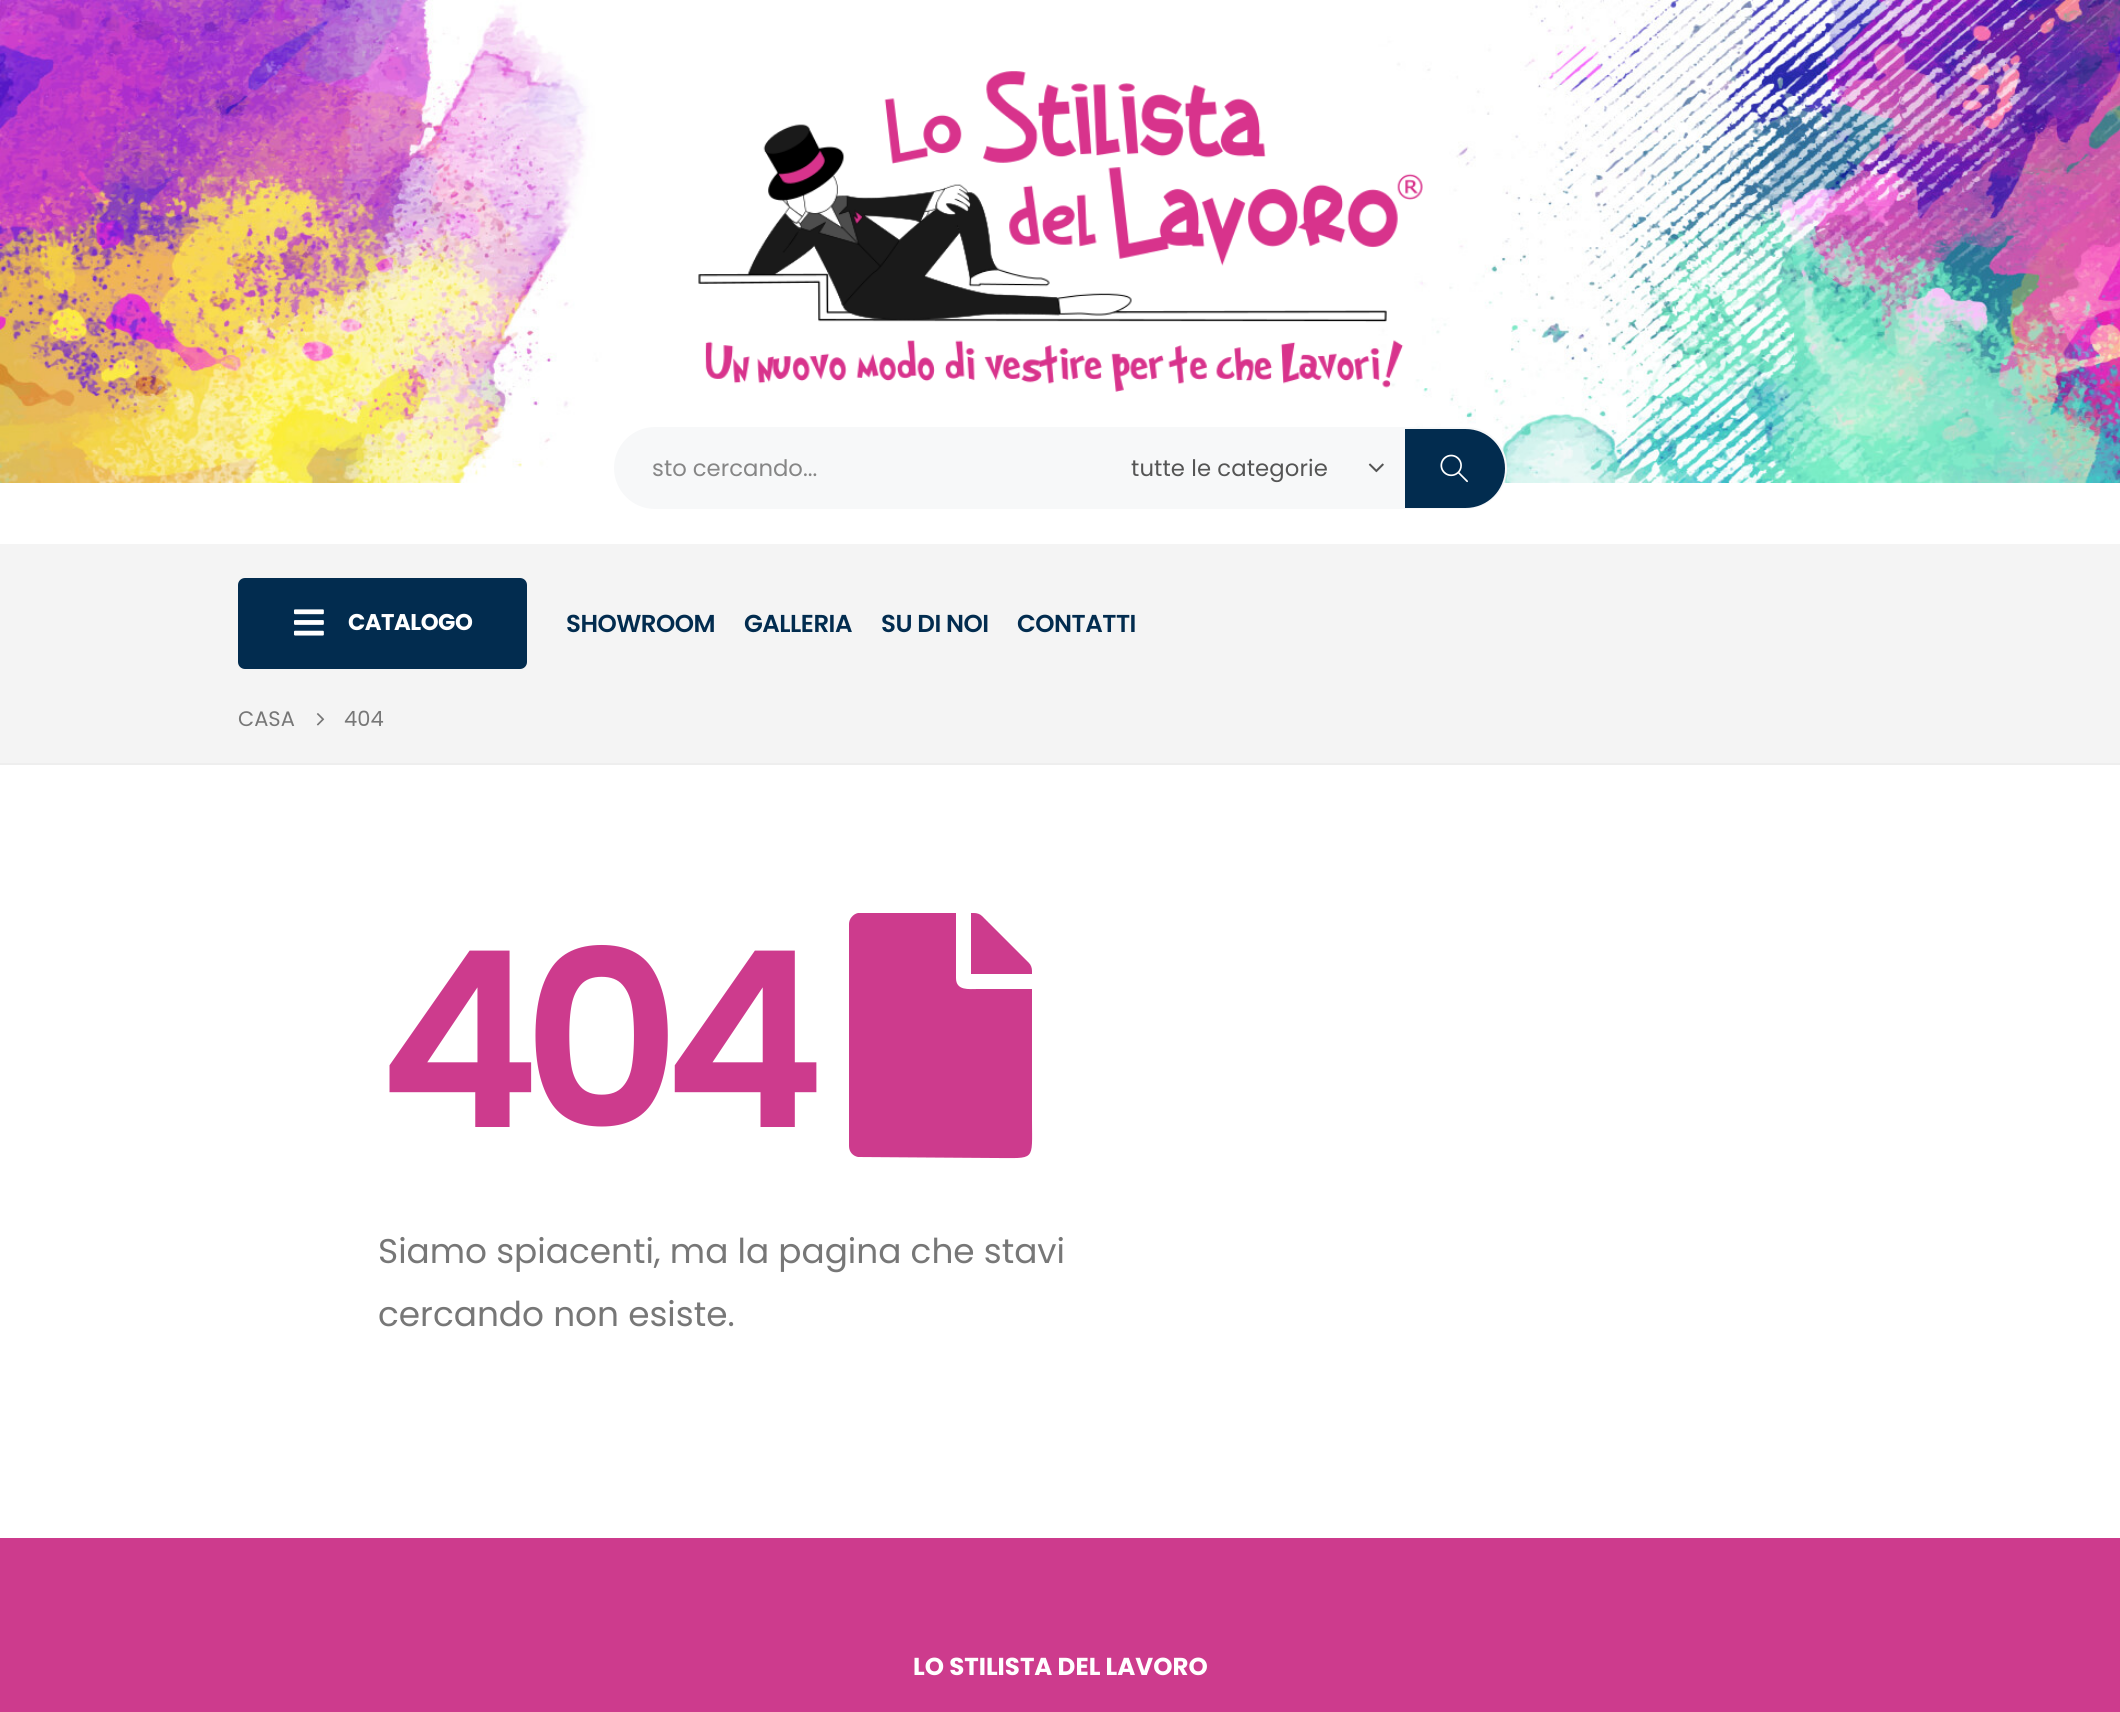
#include <cairo/cairo.h>
#include <math.h>
#include <stddef.h>

static cairo_t *cr;

static void use_color(int r, int g, int b) {
  cairo_set_source_rgb(cr, r / 255.0, g / 255.0, b / 255.0);
}

static void text(double x, double y, const char *s, const char *family, double size, int italic, int bold, int r, int g, int b) {
  cairo_select_font_face(cr, family, italic ? CAIRO_FONT_SLANT_ITALIC : CAIRO_FONT_SLANT_NORMAL,
    bold ? CAIRO_FONT_WEIGHT_BOLD : CAIRO_FONT_WEIGHT_NORMAL);
  cairo_set_font_size(cr, size);
  use_color(r, g, b);
  cairo_move_to(cr, x, y);
  cairo_show_text(cr, s);
}

static void spaced_text(double x, double y, const char *s, double letter, double word) {
  cairo_move_to(cr, x, y);
  while (*s) {
    char ch[5] = {0};
    int n = 0;
    do ch[n++] = *s++; while ((*s & 0xC0) == 0x80);
    cairo_show_text(cr, ch);
    cairo_rel_move_to(cr, letter + word * (*ch == ' '), 0);
  }
}

static void box(double x, double y, double w, double h, int r, int g, int b) {
  use_color(r, g, b);
  cairo_rectangle(cr, x, y, w, h);
  cairo_fill(cr);
}

static void round_rect(double x, double y, double w, double h, double r) {
  cairo_new_sub_path(cr);
  cairo_arc(cr, x + w - r, y + h - r, r, 0, M_PI / 2);
  cairo_arc(cr, x + r, y + h - r, r, M_PI / 2, M_PI);
  cairo_arc(cr, x + r, y + r, r, M_PI, 1.5 * M_PI);
  cairo_arc(cr, x + w - r, y + r, r, 1.5 * M_PI, 2 * M_PI);
  cairo_close_path(cr);
}

static void picture(const char *path, double x, double y, double w, double h) {
  cairo_surface_t *image = cairo_image_surface_create_from_png(path);
  cairo_save(cr);
  cairo_set_source_surface(cr, image, x, y);
  cairo_rectangle(cr, x, y, w, h);
  cairo_fill(cr);
  cairo_restore(cr);
  cairo_surface_destroy(image);
}

static void draw(void) {
  use_color(255, 255, 255);
  cairo_paint(cr);
  picture("img_01.png", 0, 0, 2120, 483);
  picture("img_02.png", 698, 71, 725, 321);
  use_color(247, 248, 249);
  round_rect(615, 428, 891, 80, 40);
  cairo_fill_preserve(cr);
  cairo_stroke(cr);
  picture("img_03.png", 1368, 463, 16, 10);
  use_color(2, 44, 79);
  cairo_new_path(cr);
  cairo_move_to(cr, 1405, 429);
  cairo_line_to(cr, 1465.5, 429);
  cairo_curve_to(cr, 1487.5, 429, 1505, 446.5, 1505, 468.5);
  cairo_curve_to(cr, 1505, 490.5, 1487.5, 508, 1465.5, 508);
  cairo_line_to(cr, 1405, 508);
  cairo_close_path(cr);
  cairo_fill(cr);
  picture("img_04.png", 1440, 454, 28, 29);
  box(0, 544, 2120, 219, 244, 244, 244);
  use_color(2, 44, 79);
  round_rect(238, 578, 289, 91, 7);
  cairo_fill(cr);
  picture("img_05.png", 294, 609, 30, 27);
  box(0, 763, 2120, 2, 238, 238, 238);
  picture("img_06.png", 316, 713, 9, 13);
  use_color(205, 59, 141);
  cairo_new_path(cr);
  cairo_move_to(cr, 956, 978);
  cairo_curve_to(cr, 956, 991, 969, 989, 978, 989);
  cairo_line_to(cr, 1032, 989);
  cairo_line_to(cr, 1032, 1120);
  cairo_curve_to(cr, 1032, 1162, 1036, 1158, 994, 1158);
  cairo_line_to(cr, 858, 1157);
  cairo_curve_to(cr, 853, 1156, 849, 1152, 849, 1146);
  cairo_line_to(cr, 849, 924);
  cairo_curve_to(cr, 849, 919, 853, 914, 858, 913);
  cairo_line_to(cr, 956, 913);
  cairo_close_path(cr);
  cairo_move_to(cr, 1032, 971);
  cairo_line_to(cr, 1032, 974);
  cairo_line_to(cr, 971, 974);
  cairo_line_to(cr, 971, 913);
  cairo_line_to(cr, 974, 913);
  cairo_curve_to(cr, 977, 913, 980, 914, 982, 916);
  cairo_line_to(cr, 1029, 963);
  cairo_curve_to(cr, 1031, 965, 1032, 968, 1032, 971);
  cairo_close_path(cr);
  cairo_fill(cr);
  box(0, 1538, 2120, 174, 205, 59, 141);
  text(652, 476, "sto cercando...", "Poppins", 22.75, 0, 0, 134, 134, 134);
  use_color(85, 85, 85);
  spaced_text(1131, 476, "tutte le categorie", 0.1, 0);
  cairo_select_font_face(cr, "Poppins", CAIRO_FONT_SLANT_NORMAL, CAIRO_FONT_WEIGHT_BOLD);
  use_color(255, 255, 255);
  spaced_text(348, 630, "CATALOGO", -0.5, 0);
  cairo_select_font_face(cr, "Poppins SemiBold", CAIRO_FONT_SLANT_NORMAL, CAIRO_FONT_WEIGHT_NORMAL);
  cairo_set_font_size(cr, 24.5);
  use_color(2, 44, 79);
  spaced_text(566, 632, "SHOWROOM", -0.5, 0);
  spaced_text(744, 632, "GALLERIA", -0.5, 0);
  spaced_text(881, 632, "SU DI NOI", -0.5, 0);
  spaced_text(1017, 632, "CONTATTI", -0.5, 0);
  text(238, 726, "CASA", "Poppins", 21, 0, 0, 119, 119, 119);
  text(344, 726, "404", "Poppins", 21, 0, 0, 119, 119, 119);
  cairo_select_font_face(cr, "Poppins SemiBold", CAIRO_FONT_SLANT_NORMAL, CAIRO_FONT_WEIGHT_NORMAL);
  cairo_set_font_size(cr, 245);
  use_color(205, 59, 141);
  spaced_text(378, 1127, "404", -17.5, 0);
  text(378, 1263, "Siamo spiacenti, ma la pagina che stavi", "Poppins", 34.3, 0, 0, 119, 119, 119);
  text(378, 1326, "cercando non esiste.", "Poppins", 34.3, 0, 0, 119, 119, 119);
  text(913, 1675, "LO STILISTA DEL LAVORO", "Poppins", 24.5, 0, 1, 255, 255, 255);
}

int main(void) {
  cairo_surface_t *surface = cairo_image_surface_create(CAIRO_FORMAT_RGB24, 2120, 1712);
  cr = cairo_create(surface);
  cairo_font_options_t *options = cairo_font_options_create();
  cairo_font_options_set_hint_metrics(options, CAIRO_HINT_METRICS_OFF);
  cairo_font_options_set_hint_style(options, CAIRO_HINT_STYLE_NONE);
  cairo_set_font_options(cr, options);
  cairo_set_miter_limit(cr, 4);
  draw();
  cairo_surface_write_to_png(surface, "out.png");
  cairo_font_options_destroy(options);
  cairo_destroy(cr);
  cairo_surface_destroy(surface);
  return 0;
}
